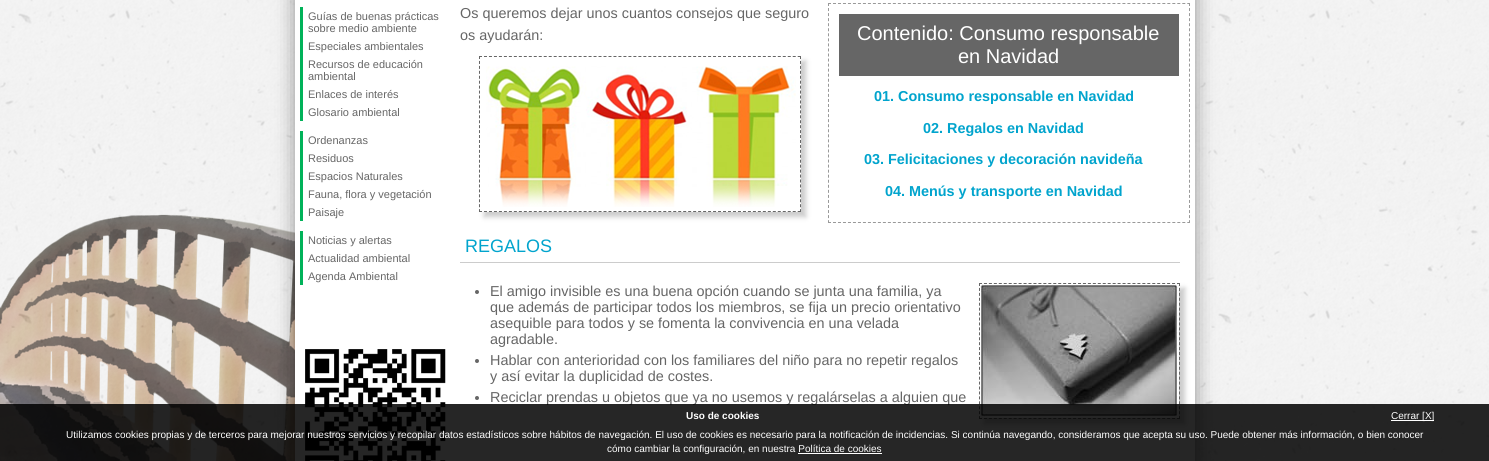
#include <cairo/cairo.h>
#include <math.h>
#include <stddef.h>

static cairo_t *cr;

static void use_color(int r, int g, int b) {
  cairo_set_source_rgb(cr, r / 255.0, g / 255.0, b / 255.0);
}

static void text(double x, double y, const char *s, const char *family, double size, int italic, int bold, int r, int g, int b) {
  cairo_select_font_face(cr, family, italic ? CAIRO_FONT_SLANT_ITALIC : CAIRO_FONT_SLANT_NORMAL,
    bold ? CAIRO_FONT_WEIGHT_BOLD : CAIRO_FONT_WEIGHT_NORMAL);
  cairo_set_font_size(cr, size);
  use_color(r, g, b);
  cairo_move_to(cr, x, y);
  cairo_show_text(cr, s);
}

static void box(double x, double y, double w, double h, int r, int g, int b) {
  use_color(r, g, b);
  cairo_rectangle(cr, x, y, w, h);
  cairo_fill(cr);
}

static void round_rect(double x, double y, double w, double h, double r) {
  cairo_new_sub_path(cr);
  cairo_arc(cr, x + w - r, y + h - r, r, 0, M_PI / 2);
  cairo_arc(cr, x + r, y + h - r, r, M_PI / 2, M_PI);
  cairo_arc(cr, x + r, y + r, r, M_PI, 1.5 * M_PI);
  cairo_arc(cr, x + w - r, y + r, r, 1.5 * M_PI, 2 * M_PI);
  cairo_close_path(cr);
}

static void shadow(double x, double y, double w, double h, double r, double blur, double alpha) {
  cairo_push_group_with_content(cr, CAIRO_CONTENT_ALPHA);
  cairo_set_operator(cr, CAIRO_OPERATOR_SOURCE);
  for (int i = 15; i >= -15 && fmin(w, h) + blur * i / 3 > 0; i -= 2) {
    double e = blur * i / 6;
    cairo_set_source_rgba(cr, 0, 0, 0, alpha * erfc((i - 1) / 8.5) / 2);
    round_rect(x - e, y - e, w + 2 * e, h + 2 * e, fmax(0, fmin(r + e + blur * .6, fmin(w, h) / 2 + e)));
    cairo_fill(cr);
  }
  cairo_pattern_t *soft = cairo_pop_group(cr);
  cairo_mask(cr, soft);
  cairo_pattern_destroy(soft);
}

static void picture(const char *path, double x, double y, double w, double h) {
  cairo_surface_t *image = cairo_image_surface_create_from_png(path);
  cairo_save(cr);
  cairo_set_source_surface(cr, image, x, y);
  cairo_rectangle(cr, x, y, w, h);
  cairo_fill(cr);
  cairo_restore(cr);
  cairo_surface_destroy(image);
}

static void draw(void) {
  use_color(255, 255, 255);
  cairo_paint(cr);
  picture("img_01.png", 0, 0, 1489, 461);
  use_color(0, 0, 0);
  shadow(295, -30, 900, 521, 0, 10, 0.4);
  box(295, 0, 900, 461, 255, 255, 255);
  box(300, 7, 3, 114, 0, 178, 89);
  box(300, 131, 3, 90, 0, 178, 89);
  box(300, 231, 3, 54, 0, 178, 89);
  picture("img_02.png", 305, 349, 141, 112);
  cairo_new_path(cr);
  cairo_move_to(cr, 828, 3.5);
  cairo_line_to(cr, 1190, 3.5);
  use_color(153, 153, 153);
  cairo_set_line_width(cr, 1);
  cairo_set_dash(cr, (double[]){3, 1.99}, 2, 0);
  cairo_stroke(cr);
  cairo_new_path(cr);
  cairo_move_to(cr, 1189.5, 3);
  cairo_line_to(cr, 1189.5, 223);
  cairo_set_dash(cr, (double[]){3, 2.05}, 2, 0);
  cairo_stroke(cr);
  cairo_new_path(cr);
  cairo_move_to(cr, 828, 222.5);
  cairo_line_to(cr, 1190, 222.5);
  cairo_set_dash(cr, (double[]){3, 1.99}, 2, 0);
  cairo_stroke(cr);
  cairo_new_path(cr);
  cairo_move_to(cr, 828.5, 3);
  cairo_line_to(cr, 828.5, 223);
  cairo_set_dash(cr, (double[]){3, 2.05}, 2, 0);
  cairo_stroke(cr);
  box(839, 14, 340, 62, 102, 102, 102);
  cairo_save(cr);
  cairo_set_fill_rule(cr, CAIRO_FILL_RULE_EVEN_ODD);
  cairo_new_path(cr);
  cairo_move_to(cr, 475, 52);
  cairo_line_to(cr, 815, 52);
  cairo_line_to(cr, 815, 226);
  cairo_line_to(cr, 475, 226);
  cairo_close_path(cr);
  cairo_move_to(cr, 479, 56);
  cairo_line_to(cr, 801, 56);
  cairo_line_to(cr, 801, 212);
  cairo_line_to(cr, 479, 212);
  cairo_close_path(cr);
  cairo_clip(cr);
  use_color(204, 204, 204);
  shadow(484, 61, 322, 156, 0, 2.5, 1);
  cairo_restore(cr);
  cairo_new_path(cr);
  cairo_move_to(cr, 479, 56.5);
  cairo_line_to(cr, 801, 56.5);
  cairo_set_dash(cr, (double[]){3, 1.98}, 2, 0);
  cairo_stroke(cr);
  cairo_new_path(cr);
  cairo_move_to(cr, 800.5, 56);
  cairo_line_to(cr, 800.5, 212);
  cairo_set_dash(cr, (double[]){3, 1.94}, 2, 0);
  cairo_stroke(cr);
  cairo_new_path(cr);
  cairo_move_to(cr, 479, 211.5);
  cairo_line_to(cr, 801, 211.5);
  cairo_set_dash(cr, (double[]){3, 1.98}, 2, 0);
  cairo_stroke(cr);
  cairo_new_path(cr);
  cairo_move_to(cr, 479.5, 56);
  cairo_line_to(cr, 479.5, 212);
  cairo_set_dash(cr, (double[]){3, 1.94}, 2, 0);
  cairo_stroke(cr);
  picture("img_03.png", 486, 66, 310, 141);
  box(460, 262, 720, 1, 204, 204, 204);
  use_color(102, 102, 102);
  cairo_arc(cr, 477, 292, 2, 0, 2 * M_PI);
  cairo_fill(cr);
  use_color(204, 204, 204);
  shadow(984, 288, 201, 136, 0, 2.5, 1);
  cairo_new_path(cr);
  cairo_move_to(cr, 979, 283.5);
  cairo_line_to(cr, 1180, 283.5);
  use_color(102, 102, 102);
  cairo_set_dash(cr, (double[]){3, 1.95}, 2, 0);
  cairo_stroke(cr);
  cairo_new_path(cr);
  cairo_move_to(cr, 1179.5, 283);
  cairo_line_to(cr, 1179.5, 419);
  cairo_set_dash(cr, (double[]){3, 1.93}, 2, 0);
  cairo_stroke(cr);
  cairo_new_path(cr);
  cairo_move_to(cr, 979, 418.5);
  cairo_line_to(cr, 1180, 418.5);
  cairo_set_dash(cr, (double[]){3, 1.95}, 2, 0);
  cairo_stroke(cr);
  cairo_new_path(cr);
  cairo_move_to(cr, 979.5, 283);
  cairo_line_to(cr, 979.5, 419);
  cairo_set_dash(cr, (double[]){3, 1.93}, 2, 0);
  cairo_stroke(cr);
  picture("img_04.png", 980, 284, 199, 134);
  cairo_arc(cr, 477, 361, 2, 0, 2 * M_PI);
  cairo_fill(cr);
  cairo_arc(cr, 477, 398, 2, 0, 2 * M_PI);
  cairo_fill(cr);
  cairo_arc(cr, 477, 435, 2, 0, 2 * M_PI);
  cairo_fill(cr);
  text(308, 20, "Guías de buenas prácticas", "Liberation Sans", 11, 0, 0, 102, 102, 102);
  text(308, 32, "sobre medio ambiente", "Liberation Sans", 11, 0, 0, 102, 102, 102);
  text(308, 50, "Especiales ambientales", "Liberation Sans", 11, 0, 0, 102, 102, 102);
  text(308, 68, "Recursos de educación", "Liberation Sans", 11, 0, 0, 102, 102, 102);
  text(308, 80, "ambiental", "Liberation Sans", 11, 0, 0, 102, 102, 102);
  text(308, 98, "Enlaces de interés", "Liberation Sans", 11, 0, 0, 102, 102, 102);
  text(308, 116, "Glosario ambiental", "Liberation Sans", 11, 0, 0, 102, 102, 102);
  text(308, 144, "Ordenanzas", "Liberation Sans", 11, 0, 0, 102, 102, 102);
  text(308, 162, "Residuos", "Liberation Sans", 11, 0, 0, 102, 102, 102);
  text(308, 180, "Espacios Naturales", "Liberation Sans", 11, 0, 0, 102, 102, 102);
  text(308, 198, "Fauna, flora y vegetación", "Liberation Sans", 11, 0, 0, 102, 102, 102);
  text(308, 216, "Paisaje", "Liberation Sans", 11, 0, 0, 102, 102, 102);
  text(308, 244, "Noticias y alertas", "Liberation Sans", 11, 0, 0, 102, 102, 102);
  text(308, 262, "Actualidad ambiental", "Liberation Sans", 11, 0, 0, 102, 102, 102);
  text(308, 280, "Agenda Ambiental", "Liberation Sans", 11, 0, 0, 102, 102, 102);
  text(460, 18, "Os queremos dejar unos cuantos consejos que seguro", "Liberation Sans", 14.4, 0, 0, 102, 102, 102);
  text(460, 40, "os ayudarán:", "Liberation Sans", 14.4, 0, 0, 102, 102, 102);
  text(857, 40, "Contenido: Consumo responsable", "Liberation Sans", 20, 0, 0, 255, 255, 255);
  text(958, 63, "en Navidad", "Liberation Sans", 20, 0, 0, 255, 255, 255);
  text(874, 101, "01. Consumo responsable en Navidad", "Liberation Sans", 14.4, 0, 1, 1, 164, 205);
  text(923, 133, "02. Regalos en Navidad", "Liberation Sans", 14.4, 0, 1, 1, 164, 205);
  text(864, 164, "03. Felicitaciones y decoración navideña", "Liberation Sans", 14.4, 0, 1, 1, 164, 205);
  text(885, 196, "04. Menús y transporte en Navidad", "Liberation Sans", 14.4, 0, 1, 1, 164, 205);
  text(465, 252, "REGALOS", "Liberation Sans", 18, 0, 0, 1, 164, 205);
  text(490, 296, "El amigo invisible es una buena opción cuando se junta una familia, ya", "Liberation Sans", 14.4, 0, 0, 102, 102, 102);
  text(490, 312, "que además de participar todos los miembros, se fija un precio orientativo", "Liberation Sans", 14.4, 0, 0, 102, 102, 102);
  text(490, 328, "asequible para todos y se fomenta la convivencia en una velada", "Liberation Sans", 14.4, 0, 0, 102, 102, 102);
  text(490, 344, "agradable.", "Liberation Sans", 14.4, 0, 0, 102, 102, 102);
  text(490, 365, "Hablar con anterioridad con los familiares del niño para no repetir regalos", "Liberation Sans", 14.4, 0, 0, 102, 102, 102);
  text(490, 381, "y así evitar la duplicidad de costes.", "Liberation Sans", 14.4, 0, 0, 102, 102, 102);
  text(490, 402, "Reciclar prendas u objetos que ya no usemos y regalárselas a alguien que", "Liberation Sans", 14.4, 0, 0, 102, 102, 102);
  cairo_set_source_rgba(cr, 0, 0, 0, 0.85);
  cairo_rectangle(cr, 0, 404, 1489, 57);
  cairo_fill(cr);
  text(686, 419, "Uso de cookies", "Liberation Sans", 10, 0, 1, 255, 255, 255);
  box(1391, 420, 43, 1, 255, 255, 255);
  text(1391, 419, "Cerrar [X]", "Liberation Sans", 10, 0, 0, 255, 255, 255);
  text(66, 438, "Utilizamos cookies propias y de terceros para mejorar nuestros servicios y recopilar datos estadísticos sobre hábitos de navegación. El uso de cookies es necesario para la notificación de incidencias. Si continúa navegando, consideramos que acepta su uso. Puede obtener más información, o bien conocer", "Liberation Sans", 10, 0, 0, 255, 255, 255);
  text(607, 452, "cómo cambiar la configuración, en nuestra Política de cookies", "Liberation Sans", 10, 0, 0, 255, 255, 255);
  box(798, 453, 84, 1, 255, 255, 255);
}

int main(void) {
  cairo_surface_t *surface = cairo_image_surface_create(CAIRO_FORMAT_RGB24, 1489, 461);
  cr = cairo_create(surface);
  cairo_font_options_t *options = cairo_font_options_create();
  cairo_font_options_set_hint_metrics(options, CAIRO_HINT_METRICS_OFF);
  cairo_font_options_set_hint_style(options, CAIRO_HINT_STYLE_NONE);
  cairo_set_font_options(cr, options);
  cairo_set_miter_limit(cr, 4);
  draw();
  cairo_surface_write_to_png(surface, "out.png");
  cairo_font_options_destroy(options);
  cairo_destroy(cr);
  cairo_surface_destroy(surface);
  return 0;
}
